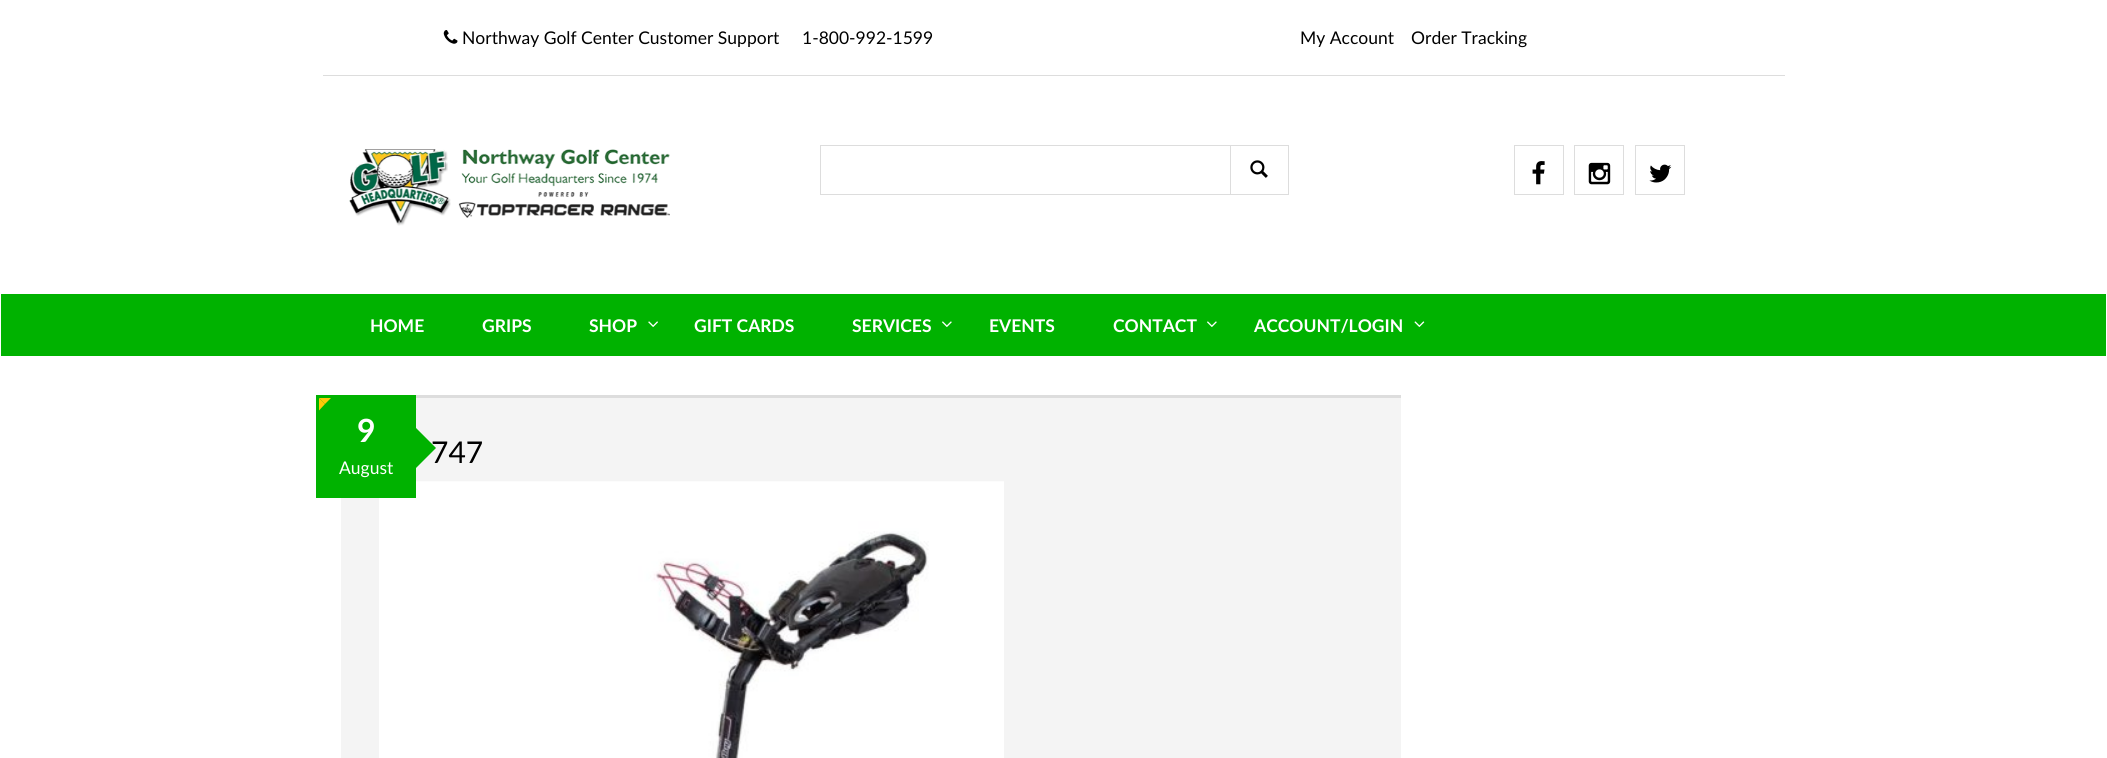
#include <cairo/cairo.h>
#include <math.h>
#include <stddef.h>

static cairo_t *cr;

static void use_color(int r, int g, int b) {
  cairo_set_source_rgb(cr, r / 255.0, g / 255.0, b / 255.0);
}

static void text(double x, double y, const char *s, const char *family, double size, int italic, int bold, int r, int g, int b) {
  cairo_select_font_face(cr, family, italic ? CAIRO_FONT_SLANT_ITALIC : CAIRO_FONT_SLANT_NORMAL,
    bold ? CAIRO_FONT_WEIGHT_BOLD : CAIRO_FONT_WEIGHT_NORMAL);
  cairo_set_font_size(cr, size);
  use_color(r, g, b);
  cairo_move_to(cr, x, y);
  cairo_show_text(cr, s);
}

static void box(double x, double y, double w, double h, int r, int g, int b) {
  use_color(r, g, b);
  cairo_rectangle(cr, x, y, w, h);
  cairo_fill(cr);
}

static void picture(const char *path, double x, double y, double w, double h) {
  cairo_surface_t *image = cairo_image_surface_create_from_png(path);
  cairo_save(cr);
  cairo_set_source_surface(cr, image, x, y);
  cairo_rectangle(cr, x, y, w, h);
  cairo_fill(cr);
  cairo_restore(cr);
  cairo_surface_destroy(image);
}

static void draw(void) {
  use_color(255, 255, 255);
  cairo_paint(cr);
  box(323, 75, 1462, 1, 221, 221, 221);
  picture("img_01.png", 443, 30, 15, 14);
  picture("img_02.png", 349, 149, 321, 77);
  cairo_rectangle(cr, 1230.5, 145.5, 58, 49);
  cairo_set_line_width(cr, 1);
  cairo_stroke(cr);
  cairo_rectangle(cr, 820.5, 145.5, 410, 49);
  cairo_stroke(cr);
  picture("img_03.png", 1250, 160, 18, 18);
  cairo_rectangle(cr, 1514.5, 145.5, 49, 49);
  cairo_stroke(cr);
  picture("img_04.png", 1532, 161, 13, 24);
  cairo_rectangle(cr, 1574.5, 145.5, 49, 49);
  cairo_stroke(cr);
  picture("img_05.png", 1588, 162, 23, 23);
  cairo_rectangle(cr, 1635.5, 145.5, 49, 49);
  cairo_stroke(cr);
  picture("img_06.png", 1649, 164, 23, 19);
  box(1, 294, 2105, 62, 0, 178, 0);
  picture("img_07.png", 648, 321, 10, 6);
  picture("img_08.png", 942, 321, 10, 6);
  picture("img_08.png", 1207, 321, 10, 6);
  picture("img_09.png", 1414, 321, 11, 6);
  box(416, 395, 985, 3, 221, 221, 221);
  box(341, 398, 1060, 360, 244, 244, 244);
  picture("img_10.png", 379, 481, 625, 277);
  box(316, 395, 100, 103, 0, 178, 0);
  use_color(255, 201, 8);
  cairo_new_path(cr);
  cairo_move_to(cr, 319, 410.5);
  cairo_line_to(cr, 319, 398);
  cairo_line_to(cr, 325, 404);
  cairo_close_path(cr);
  cairo_fill(cr);
  cairo_new_path(cr);
  cairo_move_to(cr, 319, 398);
  cairo_line_to(cr, 331, 398);
  cairo_line_to(cr, 325, 404);
  cairo_close_path(cr);
  cairo_fill(cr);
  text(462, 44, "Northway Golf Center Customer Support", "Lato", 17.5, 0, 0, 0, 0, 0);
  text(802, 44, "1-800-992-1599", "Lato", 17.5, 0, 0, 0, 0, 0);
  text(1300, 44, "My Account", "Lato", 17.5, 0, 0, 0, 0, 0);
  text(1411, 44, "Order Tracking", "Lato", 17.5, 0, 0, 0, 0, 0);
  text(370, 332, "HOME", "Lato", 17.5, 0, 1, 255, 255, 255);
  text(482, 332, "GRIPS", "Lato", 17.5, 0, 1, 255, 255, 255);
  text(589, 332, "SHOP", "Lato", 17.5, 0, 1, 255, 255, 255);
  text(694, 332, "GIFT CARDS", "Lato", 17.5, 0, 1, 255, 255, 255);
  text(852, 332, "SERVICES", "Lato", 17.5, 0, 1, 255, 255, 255);
  text(989, 332, "EVENTS", "Lato", 17.5, 0, 1, 255, 255, 255);
  text(1113, 332, "CONTACT", "Lato", 17.5, 0, 1, 255, 255, 255);
  text(1254, 332, "ACCOUNT/LOGIN", "Lato", 17.5, 0, 1, 255, 255, 255);
  text(357, 442, "9", "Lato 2", 32, 0, 1, 255, 255, 255);
  text(339, 474, "August", "Lato", 17.5, 0, 0, 255, 255, 255);
  text(431, 463, "747", "Lato", 30, 0, 0, 0, 0, 0);
  use_color(0, 178, 0);
  cairo_new_path(cr);
  cairo_move_to(cr, 415, 427);
  cairo_line_to(cr, 436, 448);
  cairo_line_to(cr, 415, 469);
  cairo_line_to(cr, 394, 448);
  cairo_close_path(cr);
  cairo_fill(cr);
}

int main(void) {
  cairo_surface_t *surface = cairo_image_surface_create(CAIRO_FORMAT_RGB24, 2107, 758);
  cr = cairo_create(surface);
  cairo_font_options_t *options = cairo_font_options_create();
  cairo_font_options_set_hint_metrics(options, CAIRO_HINT_METRICS_OFF);
  cairo_font_options_set_hint_style(options, CAIRO_HINT_STYLE_NONE);
  cairo_set_font_options(cr, options);
  cairo_set_miter_limit(cr, 4);
  draw();
  cairo_surface_write_to_png(surface, "out.png");
  cairo_font_options_destroy(options);
  cairo_destroy(cr);
  cairo_surface_destroy(surface);
  return 0;
}
